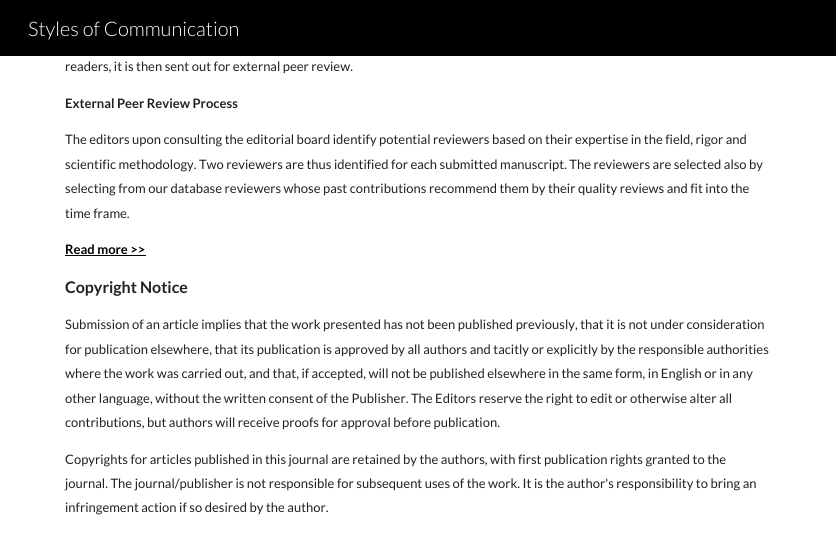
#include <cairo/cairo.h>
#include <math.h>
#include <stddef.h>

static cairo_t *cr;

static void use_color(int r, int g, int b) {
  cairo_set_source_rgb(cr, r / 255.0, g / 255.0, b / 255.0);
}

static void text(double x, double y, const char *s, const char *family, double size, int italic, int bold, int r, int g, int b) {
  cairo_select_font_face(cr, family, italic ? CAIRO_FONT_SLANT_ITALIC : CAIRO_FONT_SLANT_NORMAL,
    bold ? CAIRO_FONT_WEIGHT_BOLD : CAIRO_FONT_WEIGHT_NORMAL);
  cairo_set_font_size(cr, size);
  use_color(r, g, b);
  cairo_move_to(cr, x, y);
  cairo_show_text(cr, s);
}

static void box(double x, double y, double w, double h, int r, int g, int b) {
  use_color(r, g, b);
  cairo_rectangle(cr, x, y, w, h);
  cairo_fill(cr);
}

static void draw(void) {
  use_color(255, 255, 255);
  cairo_paint(cr);
  box(0, 0, 836, 56, 0, 0, 0);
  box(65, 255, 81, 1, 0, 0, 0);
  text(28, 36, "Styles of Communication", "Lato Light", 20, 0, 0, 255, 255, 255);
  text(65, 71, "readers, it is then sent out for external peer review.", "Lato", 13, 0, 0, 33, 33, 33);
  text(65, 108, "External Peer Review Process", "Lato", 13, 0, 1, 33, 33, 33);
  text(65, 144, "The editors upon consulting the editorial board identify potential reviewers based on their expertise in the field, rigor and", "Lato", 13, 0, 0, 33, 33, 33);
  text(65, 169, "scientific methodology. Two reviewers are thus identified for each submitted manuscript. The reviewers are selected also by", "Lato", 13, 0, 0, 33, 33, 33);
  text(65, 193, "selecting from our database reviewers whose past contributions recommend them by their quality reviews and fit into the", "Lato", 13, 0, 0, 33, 33, 33);
  text(65, 218, "time frame.", "Lato", 13, 0, 0, 33, 33, 33);
  text(65, 254, "Read more >>", "Lato", 13, 0, 1, 0, 0, 0);
  text(65, 293, "Copyright Notice", "Lato", 16, 0, 1, 33, 33, 33);
  text(65, 329, "Submission of an article implies that the work presented has not been published previously, that it is not under consideration", "Lato", 13, 0, 0, 33, 33, 33);
  text(65, 354, "for publication elsewhere, that its publication is approved by all authors and tacitly or explicitly by the responsible authorities", "Lato", 13, 0, 0, 33, 33, 33);
  text(65, 378, "where the work was carried out, and that, if accepted, will not be published elsewhere in the same form, in English or in any", "Lato", 13, 0, 0, 33, 33, 33);
  text(65, 403, "other language, without the written consent of the Publisher. The Editors reserve the right to edit or otherwise alter all", "Lato", 13, 0, 0, 33, 33, 33);
  text(65, 427, "contributions, but authors will receive proofs for approval before publication.", "Lato", 13, 0, 0, 33, 33, 33);
  text(65, 464, "Copyrights for articles published in this journal are retained by the authors, with first publication rights granted to the", "Lato", 13, 0, 0, 33, 33, 33);
  text(65, 488, "journal. The journal/publisher is not responsible for subsequent uses of the work. It is the author's responsibility to bring an", "Lato", 13, 0, 0, 33, 33, 33);
  text(65, 512, "infringement action if so desired by the author.", "Lato", 13, 0, 0, 33, 33, 33);
}

int main(void) {
  cairo_surface_t *surface = cairo_image_surface_create(CAIRO_FORMAT_RGB24, 836, 558);
  cr = cairo_create(surface);
  cairo_font_options_t *options = cairo_font_options_create();
  cairo_font_options_set_hint_metrics(options, CAIRO_HINT_METRICS_OFF);
  cairo_font_options_set_hint_style(options, CAIRO_HINT_STYLE_NONE);
  cairo_set_font_options(cr, options);
  cairo_set_miter_limit(cr, 4);
  draw();
  cairo_surface_write_to_png(surface, "out.png");
  cairo_font_options_destroy(options);
  cairo_destroy(cr);
  cairo_surface_destroy(surface);
  return 0;
}
